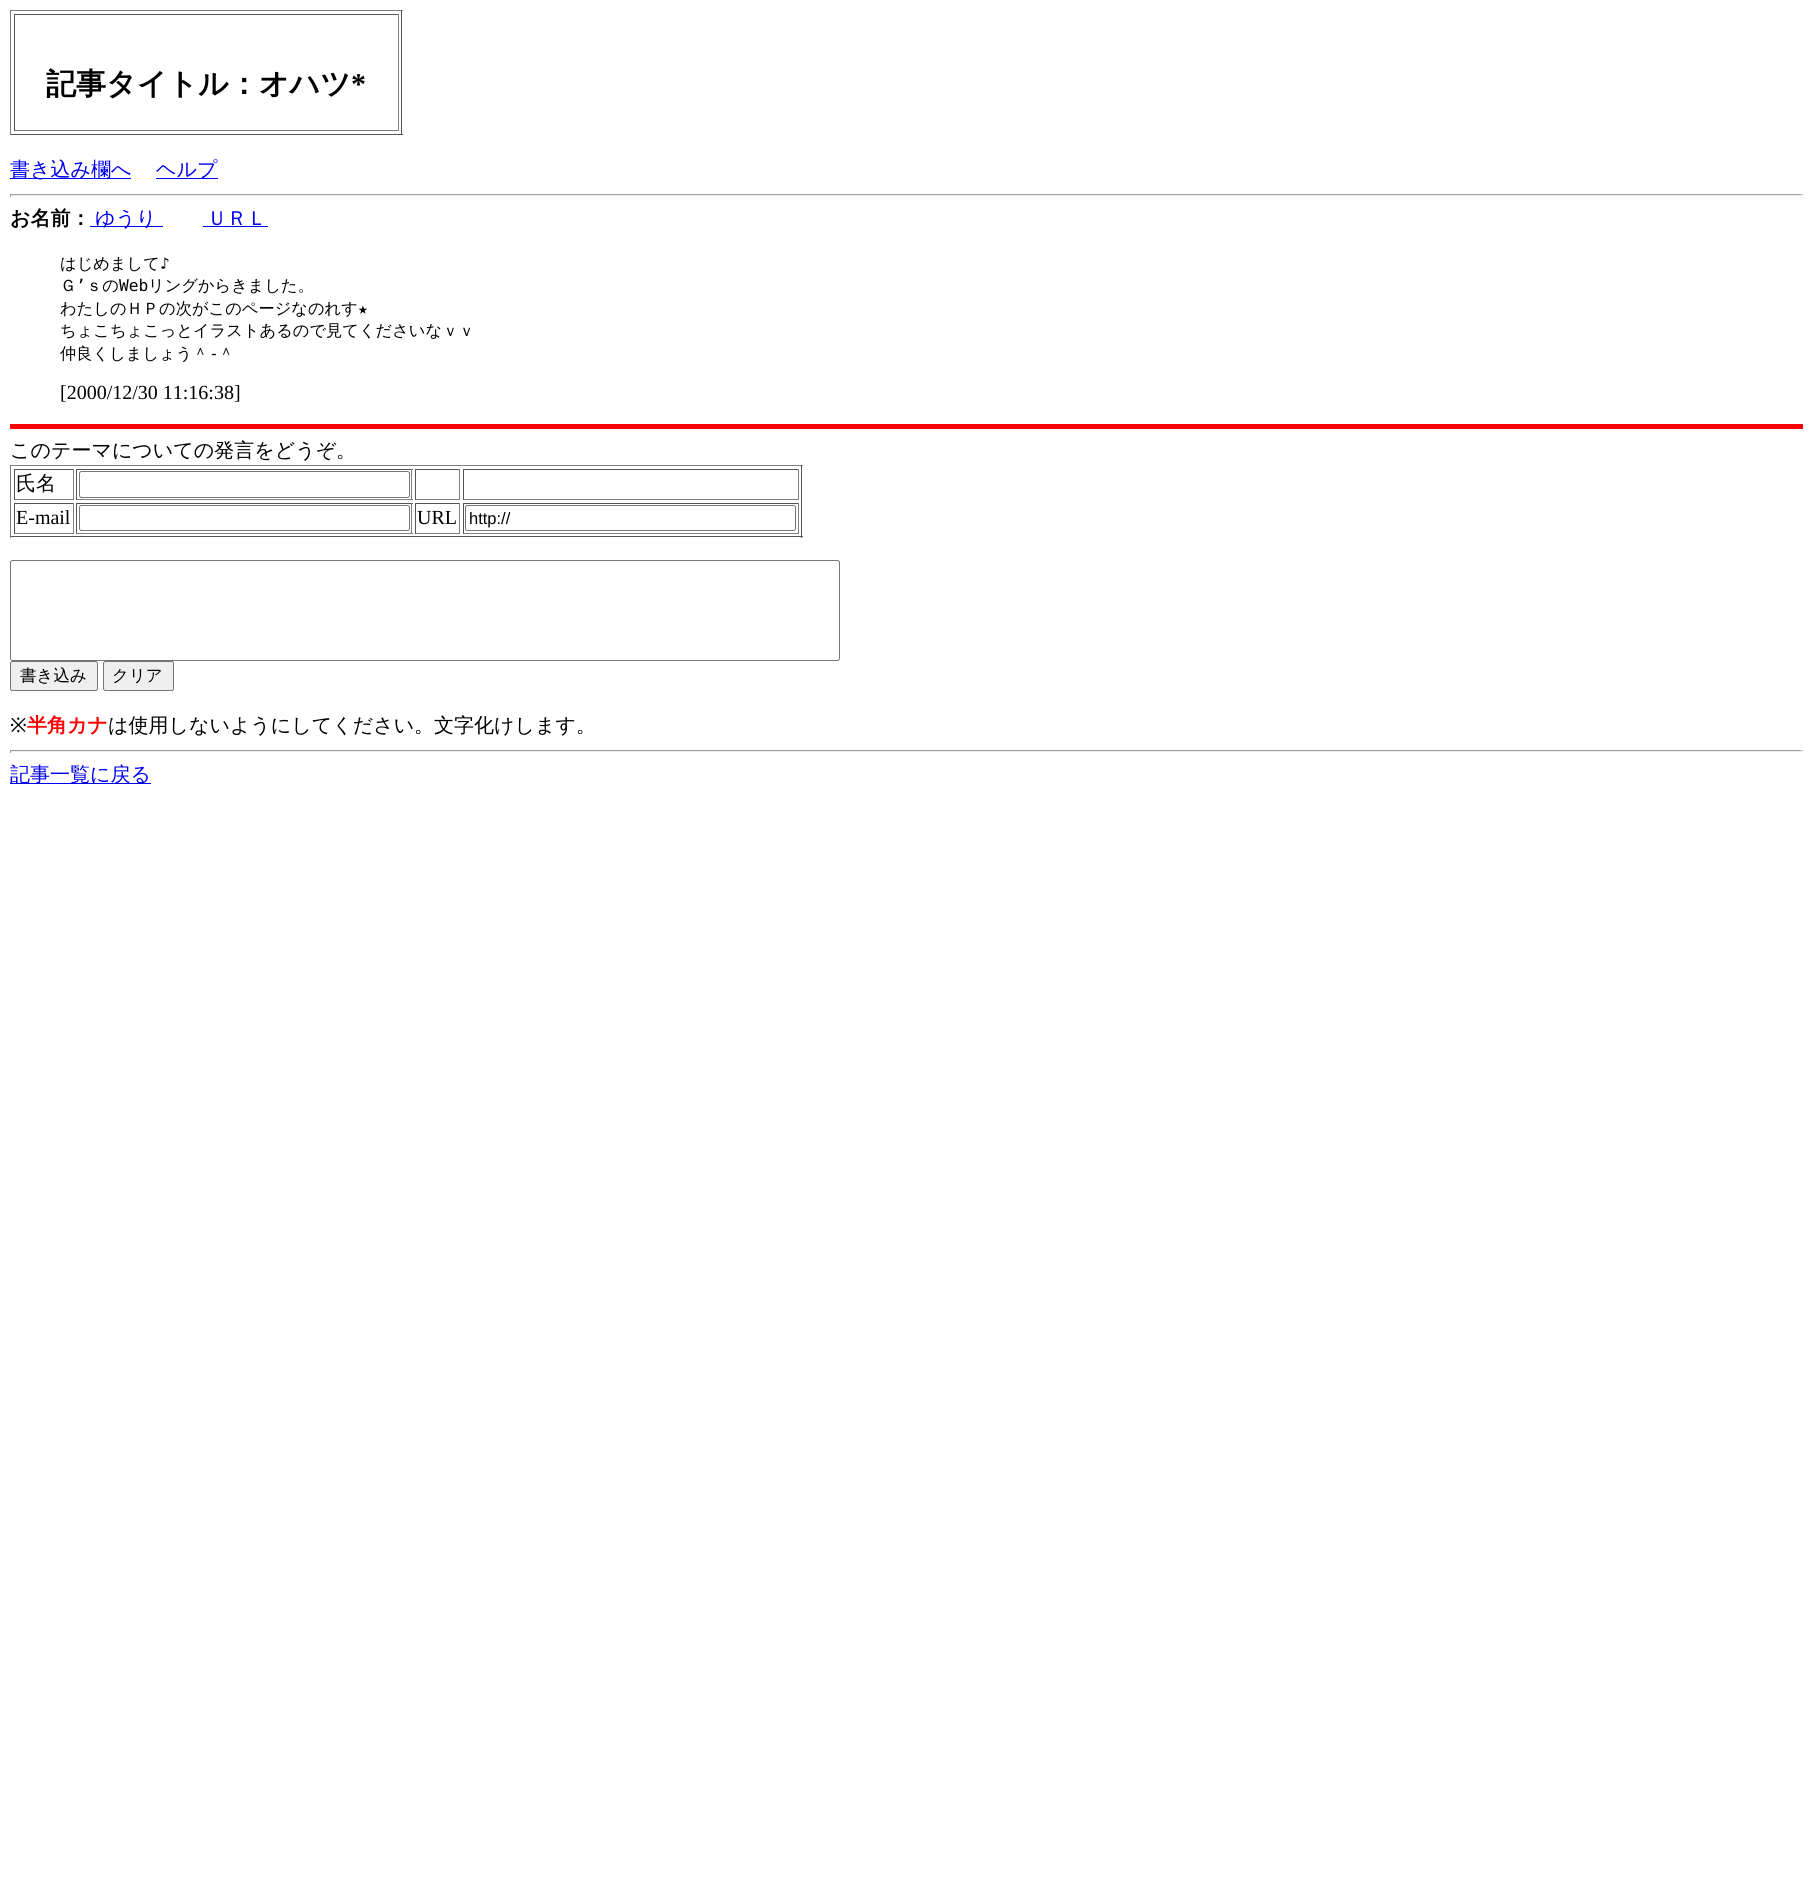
#include <cairo/cairo.h>
#include <math.h>
#include <stddef.h>

static cairo_t *cr;

static void use_color(int r, int g, int b) {
  cairo_set_source_rgb(cr, r / 255.0, g / 255.0, b / 255.0);
}

static void text(double x, double y, const char *s, const char *family, double size, int italic, int bold, int r, int g, int b) {
  cairo_select_font_face(cr, family, italic ? CAIRO_FONT_SLANT_ITALIC : CAIRO_FONT_SLANT_NORMAL,
    bold ? CAIRO_FONT_WEIGHT_BOLD : CAIRO_FONT_WEIGHT_NORMAL);
  cairo_set_font_size(cr, size);
  use_color(r, g, b);
  cairo_move_to(cr, x, y);
  cairo_show_text(cr, s);
}

static void box(double x, double y, double w, double h, int r, int g, int b) {
  use_color(r, g, b);
  cairo_rectangle(cr, x, y, w, h);
  cairo_fill(cr);
}

static void round_rect(double x, double y, double w, double h, double r) {
  cairo_new_sub_path(cr);
  cairo_arc(cr, x + w - r, y + h - r, r, 0, M_PI / 2);
  cairo_arc(cr, x + r, y + h - r, r, M_PI / 2, M_PI);
  cairo_arc(cr, x + r, y + r, r, M_PI, 1.5 * M_PI);
  cairo_arc(cr, x + w - r, y + r, r, 1.5 * M_PI, 2 * M_PI);
  cairo_close_path(cr);
}

static void draw(void) {
  use_color(255, 255, 255);
  cairo_paint(cr);
  box(10, 10, 393, 1, 128, 128, 128);
  box(401, 10, 1, 125, 85, 85, 85);
  box(10, 134, 393, 1, 85, 85, 85);
  box(10, 10, 1, 125, 128, 128, 128);
  box(14, 14, 385, 1, 85, 85, 85);
  box(398, 14, 1, 117, 128, 128, 128);
  box(14, 130, 385, 1, 128, 128, 128);
  box(14, 14, 1, 117, 85, 85, 85);
  box(10, 178, 121, 1, 0, 0, 238);
  box(156, 178, 62, 1, 0, 0, 238);
  box(10, 194, 1793, 1, 159, 159, 159);
  box(1801, 194, 1, 3, 238, 238, 238);
  box(10, 195, 1793, 1, 238, 238, 238);
  box(10, 194, 1, 3, 159, 159, 159);
  box(90, 226, 73, 1, 0, 0, 238);
  box(203, 226, 65, 1, 0, 0, 238);
  box(10, 424, 1793, 5, 255, 0, 0);
  box(10, 465, 793, 1, 128, 128, 128);
  box(801, 465, 1, 73, 85, 85, 85);
  box(10, 536, 793, 1, 85, 85, 85);
  box(10, 465, 1, 73, 128, 128, 128);
  box(14, 469, 60, 1, 85, 85, 85);
  box(73, 469, 1, 31, 128, 128, 128);
  box(14, 499, 60, 1, 128, 128, 128);
  box(14, 469, 1, 31, 85, 85, 85);
  box(76, 469, 337, 1, 85, 85, 85);
  box(411, 469, 1, 31, 128, 128, 128);
  box(76, 499, 337, 1, 128, 128, 128);
  box(76, 469, 1, 31, 85, 85, 85);
  round_rect(79.5, 471.5, 330, 26, 2);
  use_color(118, 118, 118);
  cairo_set_line_width(cr, 1);
  cairo_stroke(cr);
  box(415, 469, 45, 1, 85, 85, 85);
  box(459, 469, 1, 31, 128, 128, 128);
  box(415, 499, 45, 1, 128, 128, 128);
  box(415, 469, 1, 31, 85, 85, 85);
  box(463, 469, 336, 1, 85, 85, 85);
  box(798, 469, 1, 31, 128, 128, 128);
  box(463, 499, 336, 1, 128, 128, 128);
  box(463, 469, 1, 31, 85, 85, 85);
  box(14, 503, 60, 1, 85, 85, 85);
  box(73, 503, 1, 31, 128, 128, 128);
  box(14, 533, 60, 1, 128, 128, 128);
  box(14, 503, 1, 31, 85, 85, 85);
  box(76, 503, 337, 1, 85, 85, 85);
  box(411, 503, 1, 31, 128, 128, 128);
  box(76, 533, 337, 1, 128, 128, 128);
  box(76, 503, 1, 31, 85, 85, 85);
  round_rect(79.5, 505.5, 330, 25, 2);
  use_color(118, 118, 118);
  cairo_stroke(cr);
  box(415, 503, 45, 1, 85, 85, 85);
  box(459, 503, 1, 31, 128, 128, 128);
  box(415, 533, 45, 1, 128, 128, 128);
  box(415, 503, 1, 31, 85, 85, 85);
  box(463, 503, 336, 1, 85, 85, 85);
  box(798, 503, 1, 31, 128, 128, 128);
  box(463, 533, 336, 1, 128, 128, 128);
  box(463, 503, 1, 31, 85, 85, 85);
  round_rect(465.5, 505.5, 330, 25, 2);
  use_color(118, 118, 118);
  cairo_stroke(cr);
  round_rect(10.5, 560.5, 829, 100, 2);
  cairo_stroke(cr);
  use_color(239, 239, 239);
  round_rect(10.5, 661.5, 87, 29, 2);
  cairo_fill_preserve(cr);
  use_color(118, 118, 118);
  cairo_stroke(cr);
  use_color(239, 239, 239);
  round_rect(103.5, 661.5, 70, 29, 2);
  cairo_fill_preserve(cr);
  use_color(118, 118, 118);
  cairo_stroke(cr);
  box(10, 750, 1793, 1, 159, 159, 159);
  box(1801, 750, 1, 3, 238, 238, 238);
  box(10, 751, 1793, 1, 238, 238, 238);
  box(10, 750, 1, 3, 159, 159, 159);
  box(10, 783, 141, 1, 0, 0, 238);
  text(46, 94, "記事タイトル：オハツ", "WenQuanYi Zen Hei", 30, 0, 1, 0, 0, 0);
  text(351, 94, "*", "Liberation Serif", 30, 0, 1, 0, 0, 0);
  text(10, 176, "書き込み欄へ", "WenQuanYi Zen Hei Medium", 20, 0, 0, 0, 0, 238);
  text(156, 176, "ヘルプ", "WenQuanYi Zen Hei Medium", 20, 0, 0, 0, 0, 238);
  text(10, 225, "お名前：", "WenQuanYi Zen Hei", 20, 0, 1, 0, 0, 0);
  text(95, 225, "ゆうり", "WenQuanYi Zen Hei Medium", 20, 0, 0, 0, 0, 238);
  text(207, 225, "ＵＲＬ", "WenQuanYi Zen Hei Medium", 20, 0, 0, 0, 0, 238);
  text(60, 269, "はじめまして", "WenQuanYi Zen Hei Medium", 16.25, 0, 0, 0, 0, 0);
  text(160, 269, "♪", "DejaVu Sans Mono", 16.25, 0, 0, 0, 0, 0);
  text(60, 291, "Ｇ", "WenQuanYi Zen Hei Medium", 16.25, 0, 0, 0, 0, 0);
  text(76, 291, "’", "DejaVu Sans Mono", 16.25, 0, 0, 0, 0, 0);
  text(86, 291, "ｓの", "WenQuanYi Zen Hei Medium", 16.25, 0, 0, 0, 0, 0);
  text(119, 291, "Web", "DejaVu Sans Mono", 16.25, 0, 0, 0, 0, 0);
  text(148, 291, "リングからきました。", "WenQuanYi Zen Hei Medium", 16.25, 0, 0, 0, 0, 0);
  text(60, 314, "わたしのＨＰの次がこのページなのれす", "WenQuanYi Zen Hei Medium", 16.25, 0, 0, 0, 0, 0);
  text(358, 314, "★", "DejaVu Sans Mono", 16.25, 0, 0, 0, 0, 0);
  text(60, 336, "ちょこちょこっとイラストあるので見てくださいなｖｖ", "WenQuanYi Zen Hei Medium", 16.25, 0, 0, 0, 0, 0);
  text(60, 359, "仲良くしましょう＾", "WenQuanYi Zen Hei Medium", 16.25, 0, 0, 0, 0, 0);
  text(209, 359, "-", "DejaVu Sans Mono", 16.25, 0, 0, 0, 0, 0);
  text(218, 359, "＾", "WenQuanYi Zen Hei Medium", 16.25, 0, 0, 0, 0, 0);
  text(60, 399, "[2000/12/30 11:16:38]", "Liberation Serif", 20, 0, 0, 0, 0, 0);
  text(10, 457, "このテーマについての発言をどうぞ。", "WenQuanYi Zen Hei Medium", 20, 0, 0, 0, 0, 0);
  text(16, 490, "氏名", "WenQuanYi Zen Hei Medium", 20, 0, 0, 0, 0, 0);
  text(16, 524, "E-mail", "Liberation Serif", 20, 0, 0, 0, 0, 0);
  text(417, 524, "URL", "Liberation Serif", 20, 0, 0, 0, 0, 0);
  text(469, 524, "http://", "Liberation Sans", 16.5, 0, 0, 0, 0, 0);
  text(20, 681, "書き込み", "WenQuanYi Zen Hei Medium", 16.5, 0, 0, 0, 0, 0);
  text(112, 681, "クリア", "WenQuanYi Zen Hei Medium", 16.5, 0, 0, 0, 0, 0);
  text(10, 732, "※", "Noto Sans", 20, 0, 0, 0, 0, 0);
  text(27, 732, "半角カナ", "WenQuanYi Zen Hei", 20, 0, 1, 255, 0, 0);
  text(108, 732, "は使用しないようにしてください。文字化けします。", "WenQuanYi Zen Hei Medium", 20, 0, 0, 0, 0, 0);
  text(10, 781, "記事一覧に戻る", "WenQuanYi Zen Hei Medium", 20, 0, 0, 0, 0, 238);
}

int main(void) {
  cairo_surface_t *surface = cairo_image_surface_create(CAIRO_FORMAT_RGB24, 1812, 1890);
  cr = cairo_create(surface);
  cairo_font_options_t *options = cairo_font_options_create();
  cairo_font_options_set_hint_metrics(options, CAIRO_HINT_METRICS_OFF);
  cairo_font_options_set_hint_style(options, CAIRO_HINT_STYLE_NONE);
  cairo_set_font_options(cr, options);
  cairo_set_miter_limit(cr, 4);
  draw();
  cairo_surface_write_to_png(surface, "out.png");
  cairo_font_options_destroy(options);
  cairo_destroy(cr);
  cairo_surface_destroy(surface);
  return 0;
}
